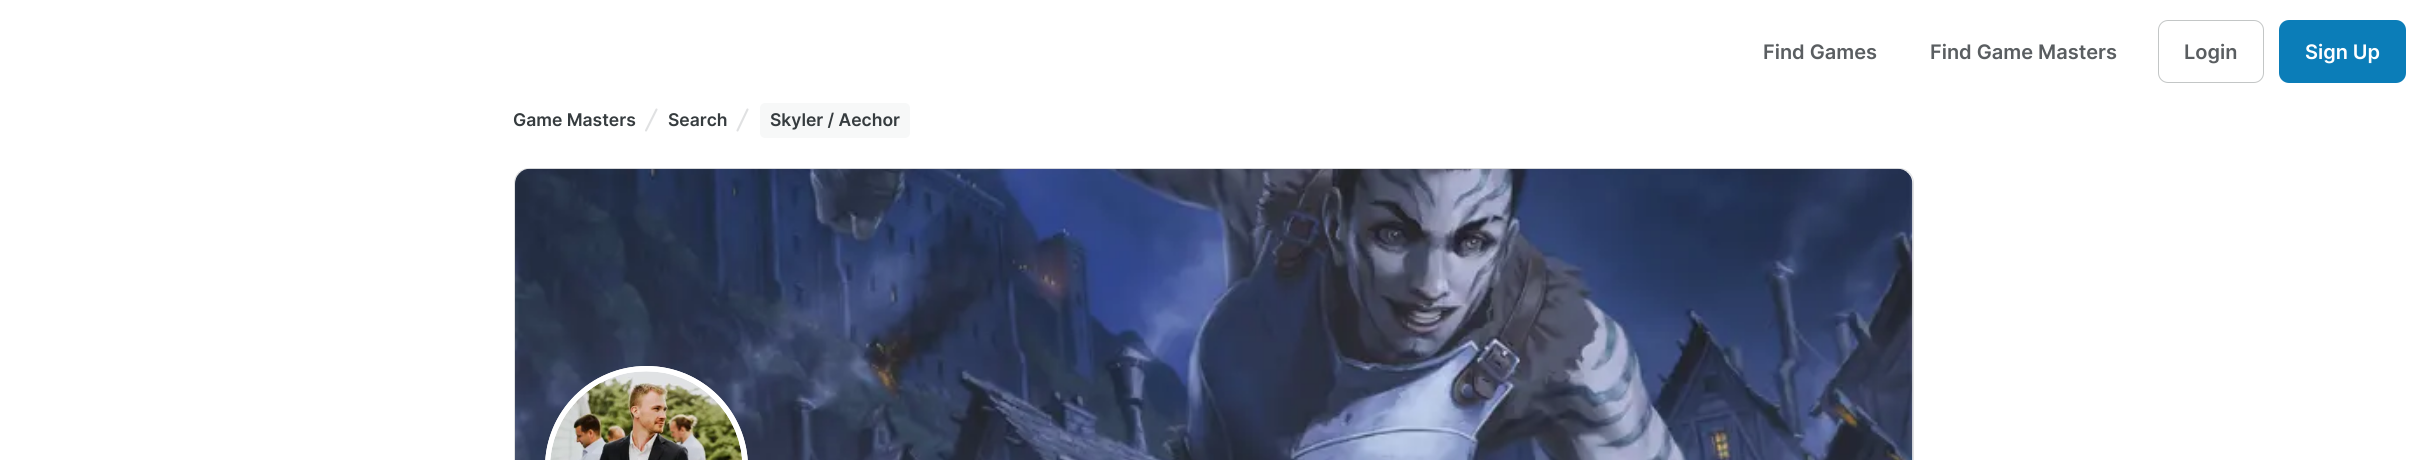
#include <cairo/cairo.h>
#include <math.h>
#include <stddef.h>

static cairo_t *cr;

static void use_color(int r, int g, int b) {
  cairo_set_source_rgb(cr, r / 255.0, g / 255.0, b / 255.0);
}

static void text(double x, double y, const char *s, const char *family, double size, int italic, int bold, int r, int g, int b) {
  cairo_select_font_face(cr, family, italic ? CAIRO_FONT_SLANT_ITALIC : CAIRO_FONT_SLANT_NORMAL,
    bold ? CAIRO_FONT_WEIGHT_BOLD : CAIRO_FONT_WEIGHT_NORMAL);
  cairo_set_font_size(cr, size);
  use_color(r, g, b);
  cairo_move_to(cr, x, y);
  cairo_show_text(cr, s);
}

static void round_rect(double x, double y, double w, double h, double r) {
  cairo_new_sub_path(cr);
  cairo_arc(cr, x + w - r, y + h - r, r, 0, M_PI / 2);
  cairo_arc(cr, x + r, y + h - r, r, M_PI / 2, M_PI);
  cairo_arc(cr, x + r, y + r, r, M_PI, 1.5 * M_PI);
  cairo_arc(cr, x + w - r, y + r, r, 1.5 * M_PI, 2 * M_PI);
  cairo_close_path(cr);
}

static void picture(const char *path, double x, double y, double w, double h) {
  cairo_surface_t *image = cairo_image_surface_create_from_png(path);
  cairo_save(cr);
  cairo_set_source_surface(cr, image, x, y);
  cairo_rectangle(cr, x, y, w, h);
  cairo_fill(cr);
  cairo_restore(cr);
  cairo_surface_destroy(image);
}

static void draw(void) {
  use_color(255, 255, 255);
  cairo_paint(cr);
  round_rect(2158.5, 20.5, 105, 62, 9.5);
  use_color(195, 198, 198);
  cairo_set_line_width(cr, 1);
  cairo_stroke(cr);
  use_color(11, 125, 184);
  round_rect(2279, 20, 127, 63, 10);
  cairo_fill(cr);
  cairo_new_path(cr);
  cairo_move_to(cr, 646, 130.5);
  cairo_line_to(cr, 656.5, 109.5);
  use_color(224, 225, 226);
  cairo_set_line_width(cr, 2.1);
  cairo_set_line_cap(cr, CAIRO_LINE_CAP_ROUND);
  cairo_set_line_join(cr, CAIRO_LINE_JOIN_ROUND);
  cairo_stroke(cr);
  cairo_new_path(cr);
  cairo_move_to(cr, 737.5, 130.5);
  cairo_line_to(cr, 747.5, 109.5);
  cairo_stroke(cr);
  use_color(247, 248, 248);
  round_rect(760, 103, 150, 35, 5);
  cairo_fill(cr);
  round_rect(514.5, 168.5, 1399, 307, 14.5);
  use_color(224, 225, 226);
  cairo_set_line_width(cr, 1);
  cairo_set_line_cap(cr, CAIRO_LINE_CAP_BUTT);
  cairo_set_line_join(cr, CAIRO_LINE_JOIN_MITER);
  cairo_stroke(cr);
  picture("img_01.png", 515, 168, 1398, 292);
  use_color(255, 255, 255);
  cairo_new_path(cr);
  cairo_move_to(cr, 646.5, 366);
  cairo_curve_to(cr, 702.5, 366, 748, 411.5, 748, 467.5);
  cairo_line_to(cr, 748, 460);
  cairo_line_to(cr, 545, 460);
  cairo_line_to(cr, 545, 467.5);
  cairo_curve_to(cr, 545, 411.5, 590.5, 366, 646.5, 366);
  cairo_close_path(cr);
  cairo_fill(cr);
  round_rect(547.5, 368.5, 198, 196, 99);
  cairo_set_line_width(cr, 5);
  cairo_stroke(cr);
  picture("img_02.png", 550, 371, 192, 89);
  text(1763, 59, "Find Games", "Inter SemiBold", 20, 0, 0, 90, 94, 97);
  text(1930, 59, "Find Game Masters", "Inter SemiBold", 20, 0, 0, 90, 94, 97);
  text(2184, 59, "Login", "Inter SemiBold", 20, 0, 0, 90, 94, 97);
  text(2305, 59, "Sign Up", "Inter SemiBold", 20, 0, 0, 255, 255, 255);
  text(513, 126, "Game Masters", "Inter SemiBold", 17.5, 0, 0, 54, 60, 63);
  text(668, 126, "Search", "Inter SemiBold", 17.5, 0, 0, 54, 60, 63);
  text(770, 126, "Skyler / Aechor", "Inter SemiBold", 17.5, 0, 0, 54, 60, 63);
}

int main(void) {
  cairo_surface_t *surface = cairo_image_surface_create(CAIRO_FORMAT_RGB24, 2426, 460);
  cr = cairo_create(surface);
  cairo_font_options_t *options = cairo_font_options_create();
  cairo_font_options_set_hint_metrics(options, CAIRO_HINT_METRICS_OFF);
  cairo_font_options_set_hint_style(options, CAIRO_HINT_STYLE_NONE);
  cairo_set_font_options(cr, options);
  cairo_set_miter_limit(cr, 4);
  draw();
  cairo_surface_write_to_png(surface, "out.png");
  cairo_font_options_destroy(options);
  cairo_destroy(cr);
  cairo_surface_destroy(surface);
  return 0;
}
